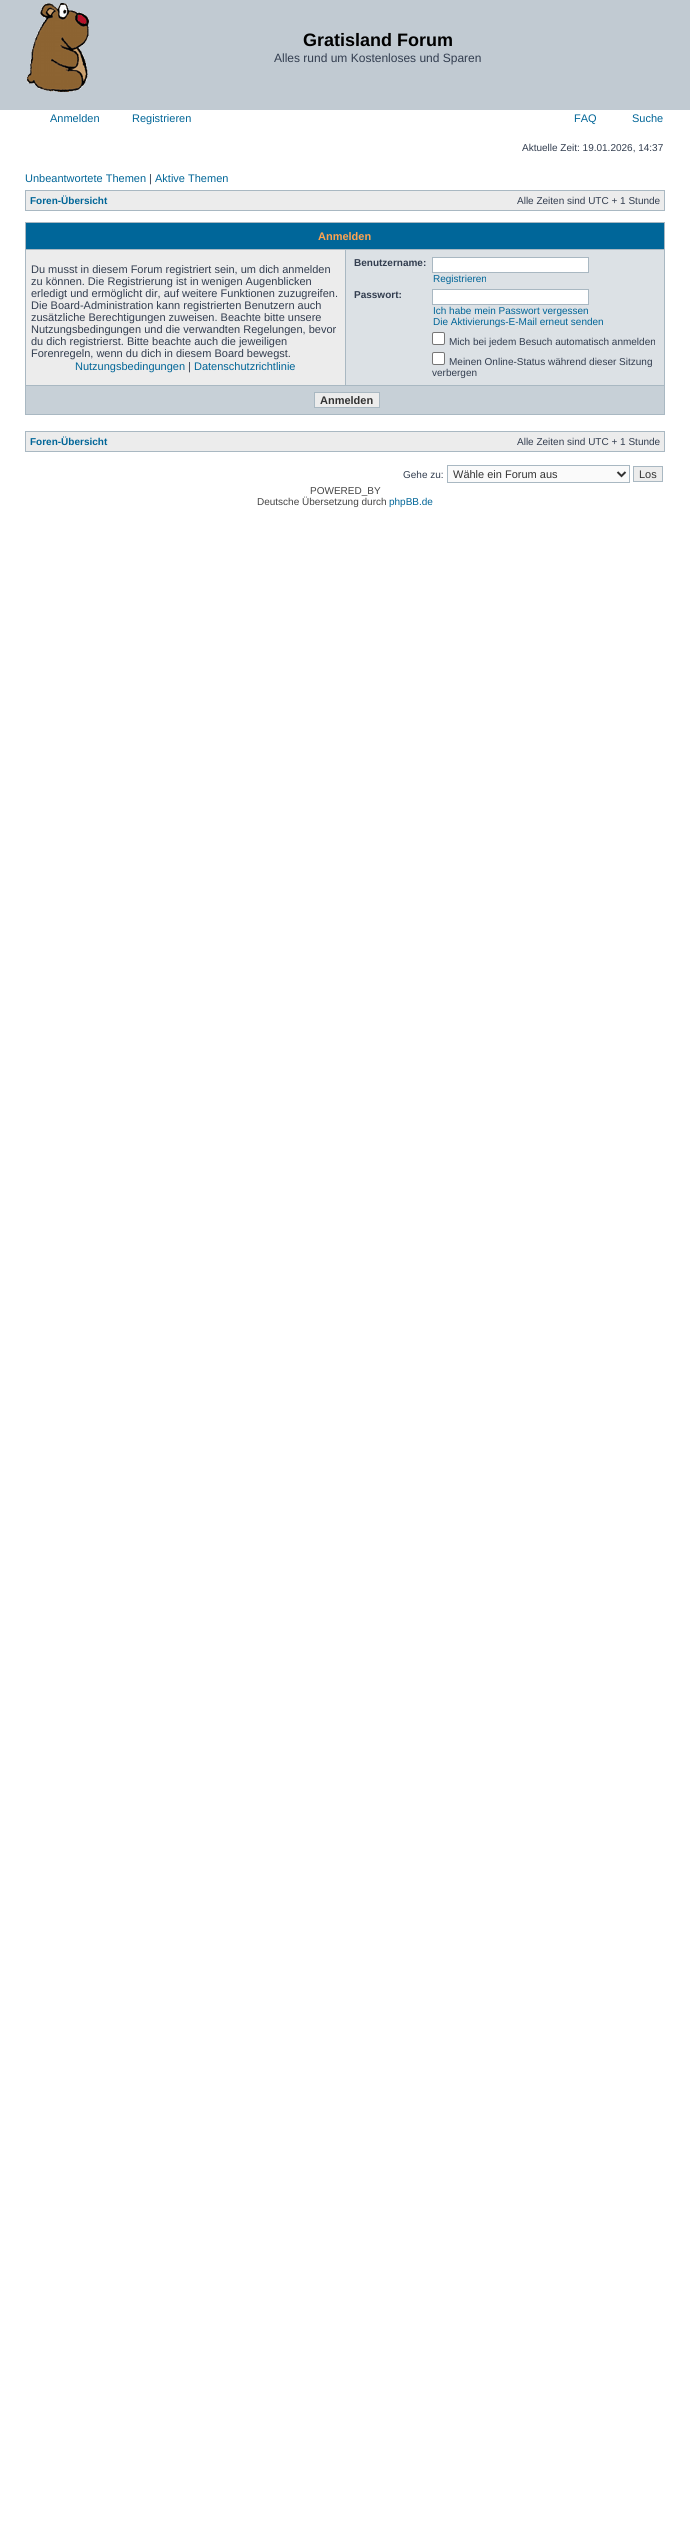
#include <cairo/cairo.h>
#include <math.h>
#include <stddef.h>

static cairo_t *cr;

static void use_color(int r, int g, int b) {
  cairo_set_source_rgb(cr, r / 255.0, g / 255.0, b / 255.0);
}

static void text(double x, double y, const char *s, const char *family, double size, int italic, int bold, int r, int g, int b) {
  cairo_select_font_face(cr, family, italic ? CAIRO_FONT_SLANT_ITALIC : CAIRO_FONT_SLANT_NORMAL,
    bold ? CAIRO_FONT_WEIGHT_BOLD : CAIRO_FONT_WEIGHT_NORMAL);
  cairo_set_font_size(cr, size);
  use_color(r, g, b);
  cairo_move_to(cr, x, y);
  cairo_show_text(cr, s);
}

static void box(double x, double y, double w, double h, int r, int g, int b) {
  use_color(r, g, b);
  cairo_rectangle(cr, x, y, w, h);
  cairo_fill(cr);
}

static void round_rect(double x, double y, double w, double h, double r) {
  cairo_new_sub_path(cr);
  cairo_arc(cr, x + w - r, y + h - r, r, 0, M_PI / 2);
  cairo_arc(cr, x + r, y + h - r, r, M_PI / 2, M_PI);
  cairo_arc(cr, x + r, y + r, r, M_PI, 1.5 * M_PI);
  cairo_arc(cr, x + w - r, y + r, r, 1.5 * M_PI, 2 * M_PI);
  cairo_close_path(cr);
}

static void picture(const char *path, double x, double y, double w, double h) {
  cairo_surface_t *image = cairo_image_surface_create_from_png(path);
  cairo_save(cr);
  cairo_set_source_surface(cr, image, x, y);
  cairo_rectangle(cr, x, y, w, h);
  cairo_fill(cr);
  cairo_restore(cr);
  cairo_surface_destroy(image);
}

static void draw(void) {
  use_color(255, 255, 255);
  cairo_paint(cr);
  box(0, 0, 690, 110, 193, 202, 210);
  picture("img_01.png", 27, 3, 62, 89);
  box(25, 190, 640, 21, 169, 184, 194);
  box(26, 191, 638, 19, 236, 236, 236);
  box(25, 222, 640, 193, 169, 184, 194);
  box(26, 223, 638, 26, 0, 102, 153);
  box(26, 250, 319, 135, 236, 236, 236);
  box(346, 250, 318, 135, 220, 225, 229);
  use_color(255, 255, 255);
  cairo_rectangle(cr, 432.5, 257.5, 156, 15);
  cairo_fill_preserve(cr);
  use_color(169, 184, 194);
  cairo_set_line_width(cr, 1);
  cairo_stroke(cr);
  use_color(255, 255, 255);
  cairo_rectangle(cr, 432.5, 289.5, 156, 15);
  cairo_fill_preserve(cr);
  use_color(169, 184, 194);
  cairo_stroke(cr);
  use_color(255, 255, 255);
  round_rect(432.5, 332.5, 12, 12, 1.5);
  cairo_fill_preserve(cr);
  use_color(118, 118, 118);
  cairo_stroke(cr);
  use_color(255, 255, 255);
  round_rect(432.5, 352.5, 12, 12, 1.5);
  cairo_fill_preserve(cr);
  use_color(118, 118, 118);
  cairo_stroke(cr);
  box(26, 386, 638, 28, 199, 208, 215);
  use_color(236, 236, 236);
  cairo_rectangle(cr, 314.5, 392.5, 65, 15);
  cairo_fill_preserve(cr);
  use_color(169, 184, 194);
  cairo_stroke(cr);
  box(25, 431, 640, 21, 169, 184, 194);
  box(26, 432, 638, 19, 236, 236, 236);
  use_color(250, 250, 250);
  cairo_rectangle(cr, 447.5, 465.5, 182, 17);
  cairo_fill_preserve(cr);
  use_color(169, 184, 194);
  cairo_stroke(cr);
  cairo_new_path(cr);
  cairo_move_to(cr, 617.5, 472);
  cairo_line_to(cr, 621.5, 476);
  cairo_line_to(cr, 625.5, 472);
  use_color(51, 51, 51);
  cairo_set_line_width(cr, 2);
  cairo_stroke(cr);
  use_color(236, 236, 236);
  cairo_rectangle(cr, 633.5, 466.5, 29, 15);
  cairo_fill_preserve(cr);
  use_color(169, 184, 194);
  cairo_set_line_width(cr, 1);
  cairo_stroke(cr);
  text(303, 46, "Gratisland Forum", "Liberation Sans", 18, 0, 1, 0, 0, 0);
  text(274, 62, "Alles rund um Kostenloses und Sparen", "Liberation Sans", 12, 0, 0, 50, 61, 79);
  text(50, 122, "Anmelden", "Liberation Sans", 11, 0, 0, 0, 101, 151);
  text(132, 122, "Registrieren", "Liberation Sans", 11, 0, 0, 0, 101, 151);
  text(574, 122, "FAQ", "Liberation Sans", 11, 0, 0, 0, 101, 151);
  text(632, 122, "Suche", "Liberation Sans", 11, 0, 0, 0, 101, 151);
  text(522, 151, "Aktuelle Zeit: 19.01.2026, 14:37", "Liberation Sans", 10, 0, 0, 50, 61, 79);
  text(25, 182, "Unbeantwortete Themen", "Liberation Sans", 11, 0, 0, 0, 101, 151);
  text(149, 182, "|", "Liberation Sans", 11, 0, 0, 50, 61, 79);
  text(155, 182, "Aktive Themen", "Liberation Sans", 11, 0, 0, 0, 101, 151);
  text(30, 204, "Foren-Übersicht", "Liberation Sans", 10, 0, 1, 0, 101, 151);
  text(517, 204, "Alle Zeiten sind UTC + 1 Stunde", "Liberation Sans", 10, 0, 0, 50, 61, 79);
  text(318, 240, "Anmelden", "Liberation Sans", 11, 0, 1, 255, 163, 79);
  text(31, 273, "Du musst in diesem Forum registriert sein, um dich anmelden", "Liberation Sans", 11, 0, 0, 50, 61, 79);
  text(31, 285, "zu können. Die Registrierung ist in wenigen Augenblicken", "Liberation Sans", 11, 0, 0, 50, 61, 79);
  text(31, 297, "erledigt und ermöglicht dir, auf weitere Funktionen zuzugreifen.", "Liberation Sans", 11, 0, 0, 50, 61, 79);
  text(31, 309, "Die Board-Administration kann registrierten Benutzern auch", "Liberation Sans", 11, 0, 0, 50, 61, 79);
  text(31, 321, "zusätzliche Berechtigungen zuweisen. Beachte bitte unsere", "Liberation Sans", 11, 0, 0, 50, 61, 79);
  text(31, 333, "Nutzungsbedingungen und die verwandten Regelungen, bevor", "Liberation Sans", 11, 0, 0, 50, 61, 79);
  text(31, 345, "du dich registrierst. Bitte beachte auch die jeweiligen", "Liberation Sans", 11, 0, 0, 50, 61, 79);
  text(31, 357, "Forenregeln, wenn du dich in diesem Board bewegst.", "Liberation Sans", 11, 0, 0, 50, 61, 79);
  text(75, 370, "Nutzungsbedingungen", "Liberation Sans", 11, 0, 0, 0, 101, 151);
  text(188, 370, "|", "Liberation Sans", 11, 0, 0, 50, 61, 79);
  text(194, 370, "Datenschutzrichtlinie", "Liberation Sans", 11, 0, 0, 0, 101, 151);
  text(354, 266, "Benutzername:", "Liberation Sans", 10, 0, 1, 50, 61, 79);
  text(433, 282, "Registrieren", "Liberation Sans", 10, 0, 0, 0, 101, 151);
  text(354, 298, "Passwort:", "Liberation Sans", 10, 0, 1, 50, 61, 79);
  text(433, 314, "Ich habe mein Passwort vergessen", "Liberation Sans", 10, 0, 0, 0, 101, 151);
  text(433, 325, "Die Aktivierungs-E-Mail erneut senden", "Liberation Sans", 10, 0, 0, 0, 101, 151);
  text(449, 345, "Mich bei jedem Besuch automatisch anmelden", "Liberation Sans", 10, 0, 0, 50, 61, 79);
  text(449, 365, "Meinen Online-Status während dieser Sitzung", "Liberation Sans", 10, 0, 0, 50, 61, 79);
  text(432, 376, "verbergen", "Liberation Sans", 10, 0, 0, 50, 61, 79);
  text(320, 404, "Anmelden", "Liberation Sans", 11, 0, 1, 51, 51, 51);
  text(30, 445, "Foren-Übersicht", "Liberation Sans", 10, 0, 1, 0, 101, 151);
  text(517, 445, "Alle Zeiten sind UTC + 1 Stunde", "Liberation Sans", 10, 0, 0, 50, 61, 79);
  text(403, 478, "Gehe zu:", "Liberation Sans", 10, 0, 0, 50, 61, 79);
  text(453, 478, "Wähle ein Forum aus", "Liberation Sans", 11, 0, 0, 51, 51, 51);
  text(639, 478, "Los", "Liberation Sans", 11, 0, 0, 51, 51, 51);
  text(310, 494, "POWERED_BY", "Liberation Sans", 10, 0, 0, 68, 68, 68);
  text(257, 505, "Deutsche Übersetzung durch", "Liberation Sans", 10, 0, 0, 68, 68, 68);
  text(389, 505, "phpBB.de", "Liberation Sans", 10, 0, 0, 0, 101, 151);
}

int main(void) {
  cairo_surface_t *surface = cairo_image_surface_create(CAIRO_FORMAT_RGB24, 690, 2540);
  cr = cairo_create(surface);
  cairo_font_options_t *options = cairo_font_options_create();
  cairo_font_options_set_hint_metrics(options, CAIRO_HINT_METRICS_OFF);
  cairo_font_options_set_hint_style(options, CAIRO_HINT_STYLE_NONE);
  cairo_set_font_options(cr, options);
  cairo_set_miter_limit(cr, 4);
  draw();
  cairo_surface_write_to_png(surface, "out.png");
  cairo_font_options_destroy(options);
  cairo_destroy(cr);
  cairo_surface_destroy(surface);
  return 0;
}
